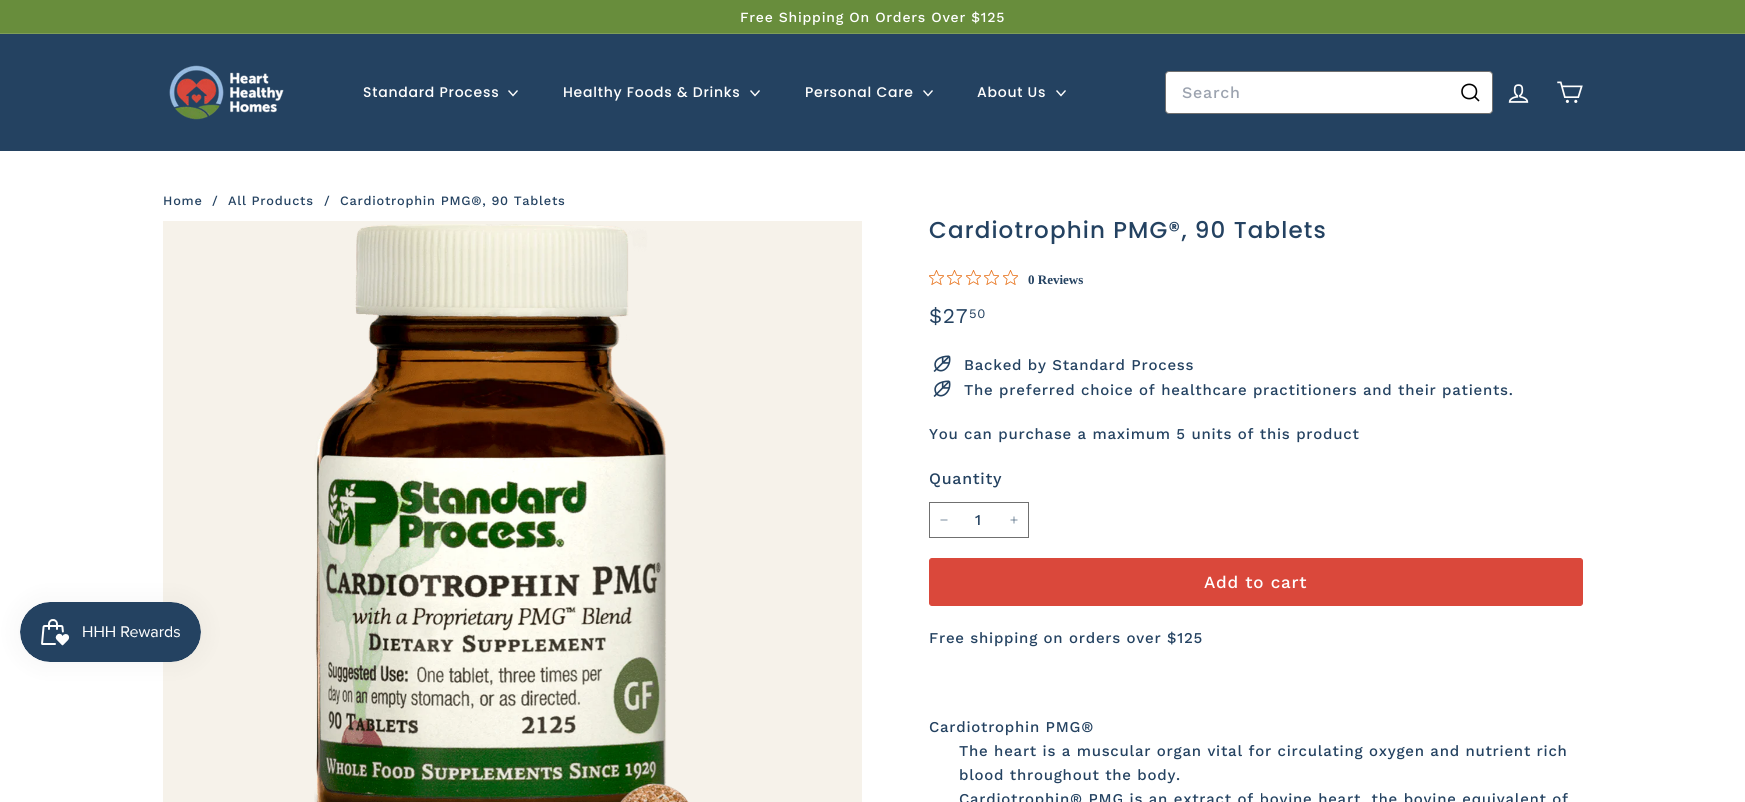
#include <cairo/cairo.h>
#include <math.h>
#include <stddef.h>

static cairo_t *cr;

static void use_color(int r, int g, int b) {
  cairo_set_source_rgb(cr, r / 255.0, g / 255.0, b / 255.0);
}

static void text(double x, double y, const char *s, const char *family, double size, int italic, int bold, int r, int g, int b) {
  cairo_select_font_face(cr, family, italic ? CAIRO_FONT_SLANT_ITALIC : CAIRO_FONT_SLANT_NORMAL,
    bold ? CAIRO_FONT_WEIGHT_BOLD : CAIRO_FONT_WEIGHT_NORMAL);
  cairo_set_font_size(cr, size);
  use_color(r, g, b);
  cairo_move_to(cr, x, y);
  cairo_show_text(cr, s);
}

static void spaced_text(double x, double y, const char *s, double letter, double word) {
  cairo_move_to(cr, x, y);
  while (*s) {
    char ch[5] = {0};
    int n = 0;
    do ch[n++] = *s++; while ((*s & 0xC0) == 0x80);
    cairo_show_text(cr, ch);
    cairo_rel_move_to(cr, letter + word * (*ch == ' '), 0);
  }
}

static void box(double x, double y, double w, double h, int r, int g, int b) {
  use_color(r, g, b);
  cairo_rectangle(cr, x, y, w, h);
  cairo_fill(cr);
}

static void round_rect(double x, double y, double w, double h, double r) {
  cairo_new_sub_path(cr);
  cairo_arc(cr, x + w - r, y + h - r, r, 0, M_PI / 2);
  cairo_arc(cr, x + r, y + h - r, r, M_PI / 2, M_PI);
  cairo_arc(cr, x + r, y + r, r, M_PI, 1.5 * M_PI);
  cairo_arc(cr, x + w - r, y + r, r, 1.5 * M_PI, 2 * M_PI);
  cairo_close_path(cr);
}

static void shadow(double x, double y, double w, double h, double r, double blur, double alpha) {
  cairo_push_group_with_content(cr, CAIRO_CONTENT_ALPHA);
  cairo_set_operator(cr, CAIRO_OPERATOR_SOURCE);
  for (int i = 15; i >= -15 && fmin(w, h) + blur * i / 3 > 0; i -= 2) {
    double e = blur * i / 6;
    cairo_set_source_rgba(cr, 0, 0, 0, alpha * erfc((i - 1) / 8.5) / 2);
    round_rect(x - e, y - e, w + 2 * e, h + 2 * e, fmax(0, fmin(r + e + blur * .6, fmin(w, h) / 2 + e)));
    cairo_fill(cr);
  }
  cairo_pattern_t *soft = cairo_pop_group(cr);
  cairo_mask(cr, soft);
  cairo_pattern_destroy(soft);
}

static void picture(const char *path, double x, double y, double w, double h) {
  cairo_surface_t *image = cairo_image_surface_create_from_png(path);
  cairo_save(cr);
  cairo_set_source_surface(cr, image, x, y);
  cairo_rectangle(cr, x, y, w, h);
  cairo_fill(cr);
  cairo_restore(cr);
  cairo_surface_destroy(image);
}

static void draw(void) {
  use_color(255, 255, 255);
  cairo_paint(cr);
  box(163, 221, 699, 581, 246, 242, 234);
  use_color(0, 0, 0);
  shadow(20, 602, 181, 60, 30, 12.5, 0.05);
  picture("img_01.png", 20, 602, 181, 60);
  box(0, 0, 1745, 33, 104, 141, 60);
  box(0, 33, 1745, 1, 127, 158, 89);
  box(0, 34, 1745, 117, 36, 66, 97);
  picture("img_02.png", 169, 65, 115, 55);
  cairo_new_path(cr);
  cairo_move_to(cr, 508.5, 90.5);
  cairo_line_to(cr, 513, 95.5);
  cairo_line_to(cr, 517.5, 90.5);
  use_color(255, 255, 255);
  cairo_set_line_width(cr, 1.4);
  cairo_stroke(cr);
  cairo_new_path(cr);
  cairo_move_to(cr, 750.5, 90.5);
  cairo_line_to(cr, 755, 95.5);
  cairo_line_to(cr, 759.5, 90.5);
  cairo_stroke(cr);
  cairo_new_path(cr);
  cairo_move_to(cr, 923.5, 90.5);
  cairo_line_to(cr, 928, 95.5);
  cairo_line_to(cr, 932.5, 90.5);
  cairo_stroke(cr);
  cairo_new_path(cr);
  cairo_move_to(cr, 1056.5, 90.5);
  cairo_line_to(cr, 1061, 95.5);
  cairo_line_to(cr, 1065.5, 90.5);
  cairo_stroke(cr);
  round_rect(1165.5, 71.5, 327, 42, 3.5);
  cairo_fill_preserve(cr);
  use_color(112, 112, 112);
  cairo_set_line_width(cr, 1);
  cairo_stroke(cr);
  cairo_new_path(cr);
  cairo_move_to(cr, 1476.5, 91.5);
  cairo_curve_to(cr, 1476.5, 101, 1462, 101, 1462, 91.5);
  cairo_curve_to(cr, 1462, 82, 1476.5, 82, 1476.5, 91.5);
  cairo_move_to(cr, 1479, 101);
  cairo_line_to(cr, 1474.5, 96.5);
  use_color(0, 0, 0);
  cairo_set_line_width(cr, 1.6);
  cairo_stroke(cr);
  picture("img_03.png", 1508, 84, 21, 19);
  picture("img_04.png", 1557, 81, 26, 22);
  picture("img_05.png", 314, 224, 375, 578);
  picture("img_06.png", 929, 270, 15, 15);
  picture("img_06.png", 947, 270, 15, 15);
  picture("img_06.png", 966, 270, 15, 15);
  picture("img_06.png", 984, 270, 15, 15);
  picture("img_06.png", 1003, 270, 15, 15);
  picture("img_07.png", 933, 355, 18, 17);
  picture("img_07.png", 933, 380, 18, 17);
  cairo_rectangle(cr, 929.5, 502.5, 99, 35);
  use_color(112, 112, 112);
  cairo_set_line_width(cr, 1);
  cairo_stroke(cr);
  cairo_new_path(cr);
  cairo_move_to(cr, 947.5, 520);
  cairo_line_to(cr, 940.5, 520);
  use_color(36, 66, 97);
  cairo_set_line_width(cr, 0.6);
  cairo_stroke(cr);
  cairo_new_path(cr);
  cairo_move_to(cr, 1014, 516.5);
  cairo_line_to(cr, 1014, 523.5);
  cairo_move_to(cr, 1017.5, 520);
  cairo_line_to(cr, 1010.5, 520);
  cairo_stroke(cr);
  use_color(218, 72, 59);
  round_rect(929.5, 558.5, 653, 47, 2.5);
  cairo_fill_preserve(cr);
  cairo_set_line_width(cr, 1);
  cairo_stroke(cr);
  cairo_select_font_face(cr, "Work Sans Medium", CAIRO_FONT_SLANT_NORMAL, CAIRO_FONT_WEIGHT_NORMAL);
  cairo_set_font_size(cr, 14);
  use_color(255, 255, 255);
  spaced_text(740, 22, "Free Shipping On Orders Over $125", 0.75, 0);
  cairo_select_font_face(cr, "Poppins Medium", CAIRO_FONT_SLANT_NORMAL, CAIRO_FONT_WEIGHT_NORMAL);
  spaced_text(363, 97, "Standard Process", 0.75, 0);
  spaced_text(563, 97, "Healthy Foods & Drinks", 0.75, 0);
  spaced_text(805, 97, "Personal Care", 0.75, 0);
  spaced_text(977, 97, "About Us", 0.75, 0);
  cairo_select_font_face(cr, "Work Sans Medium", CAIRO_FONT_SLANT_NORMAL, CAIRO_FONT_WEIGHT_NORMAL);
  cairo_set_font_size(cr, 16);
  use_color(156, 163, 175);
  spaced_text(1182, 98, "Search", 0.75, 0);
  cairo_set_font_size(cr, 12.75);
  use_color(36, 66, 97);
  spaced_text(163, 205, "Home", 0.75, 0);
  spaced_text(212, 205, "/", 0.75, 0);
  spaced_text(228, 205, "All Products", 0.75, 0);
  spaced_text(324, 205, "/", 0.75, 0);
  spaced_text(340, 205, "Cardiotrophin PMG®, 90 Tablets", 0.75, 0);
  cairo_select_font_face(cr, "Poppins Medium", CAIRO_FONT_SLANT_NORMAL, CAIRO_FONT_WEIGHT_NORMAL);
  cairo_set_font_size(cr, 23);
  spaced_text(929, 238, "Cardiotrophin PMG®, 90 Tablets", 1.15, 0);
  text(1028, 284, "0 Reviews", "Liberation Serif", 13, 0, 1, 36, 66, 97);
  cairo_select_font_face(cr, "Work Sans", CAIRO_FONT_SLANT_NORMAL, CAIRO_FONT_WEIGHT_NORMAL);
  cairo_set_font_size(cr, 21);
  spaced_text(929, 323, "$27", 0.75, 0);
  cairo_set_font_size(cr, 13);
  spaced_text(969, 318, "50", 0.75, 0);
  cairo_select_font_face(cr, "Work Sans Medium", CAIRO_FONT_SLANT_NORMAL, CAIRO_FONT_WEIGHT_NORMAL);
  cairo_set_font_size(cr, 15);
  spaced_text(964, 370, "Backed by Standard Process", 0.75, 0);
  spaced_text(964, 395, "The preferred choice of healthcare practitioners and their patients.", 0.75, 0);
  spaced_text(929, 439, "You can purchase a maximum 5 units of this product", 0.75, 0);
  cairo_set_font_size(cr, 16);
  spaced_text(929, 484, "Quantity", 0.75, 0);
  cairo_set_font_size(cr, 15);
  spaced_text(975, 525, "1", 0.75, 0);
  cairo_set_font_size(cr, 17);
  use_color(255, 255, 255);
  spaced_text(1204, 588, "Add to cart", 0.8, 0);
  cairo_set_font_size(cr, 15);
  use_color(36, 66, 97);
  spaced_text(929, 643, "Free shipping on orders over $125", 0.75, 0);
  spaced_text(929, 732, "Cardiotrophin PMG®", 0.75, 0);
  spaced_text(959, 756, "The heart is a muscular organ vital for circulating oxygen and nutrient rich", 0.75, 0);
  spaced_text(959, 780, "blood throughout the body.", 0.75, 0);
  spaced_text(959, 804, "Cardiotrophin® PMG is an extract of bovine heart, the bovine equivalent of", 0.75, 0);
}

int main(void) {
  cairo_surface_t *surface = cairo_image_surface_create(CAIRO_FORMAT_RGB24, 1745, 802);
  cr = cairo_create(surface);
  cairo_font_options_t *options = cairo_font_options_create();
  cairo_font_options_set_hint_metrics(options, CAIRO_HINT_METRICS_OFF);
  cairo_font_options_set_hint_style(options, CAIRO_HINT_STYLE_NONE);
  cairo_set_font_options(cr, options);
  cairo_set_miter_limit(cr, 4);
  draw();
  cairo_surface_write_to_png(surface, "out.png");
  cairo_font_options_destroy(options);
  cairo_destroy(cr);
  cairo_surface_destroy(surface);
  return 0;
}
